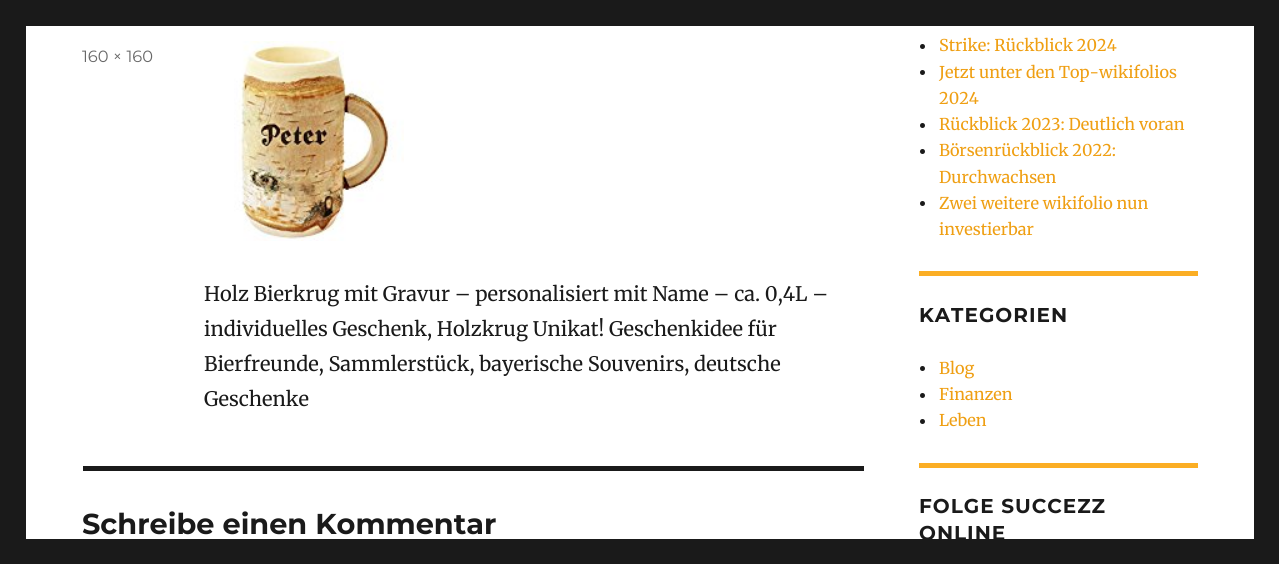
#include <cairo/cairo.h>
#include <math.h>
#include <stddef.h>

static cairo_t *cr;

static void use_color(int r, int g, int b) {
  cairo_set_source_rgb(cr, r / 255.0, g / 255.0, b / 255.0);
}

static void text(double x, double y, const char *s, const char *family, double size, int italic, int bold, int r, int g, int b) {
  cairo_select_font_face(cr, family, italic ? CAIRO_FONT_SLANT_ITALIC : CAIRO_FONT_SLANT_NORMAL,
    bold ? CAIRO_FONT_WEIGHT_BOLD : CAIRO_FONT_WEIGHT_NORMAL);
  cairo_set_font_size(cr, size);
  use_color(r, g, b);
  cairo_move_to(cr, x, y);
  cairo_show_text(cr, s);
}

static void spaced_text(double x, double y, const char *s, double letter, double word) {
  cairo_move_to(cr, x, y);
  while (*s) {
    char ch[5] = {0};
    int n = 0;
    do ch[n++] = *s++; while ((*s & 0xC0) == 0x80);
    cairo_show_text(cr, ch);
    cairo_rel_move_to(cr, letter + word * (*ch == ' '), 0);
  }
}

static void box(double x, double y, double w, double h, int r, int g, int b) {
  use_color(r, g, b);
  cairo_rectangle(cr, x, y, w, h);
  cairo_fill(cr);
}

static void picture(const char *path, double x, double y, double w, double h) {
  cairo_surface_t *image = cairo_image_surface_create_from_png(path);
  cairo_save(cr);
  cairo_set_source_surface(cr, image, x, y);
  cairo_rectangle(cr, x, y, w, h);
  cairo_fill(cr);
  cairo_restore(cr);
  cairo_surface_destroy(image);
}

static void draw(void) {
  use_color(26, 26, 26);
  cairo_paint(cr);
  box(26, 26, 1228, 513, 255, 255, 255);
  picture("img_01.png", 234, 41, 170, 200);
  box(83, 466, 781, 5, 26, 26, 26);
  cairo_arc(cr, 922.5, 46.5, 2.5, 0, 2 * M_PI);
  cairo_fill(cr);
  cairo_arc(cr, 922.5, 72.5, 2.5, 0, 2 * M_PI);
  cairo_fill(cr);
  cairo_arc(cr, 922.5, 125.5, 2.5, 0, 2 * M_PI);
  cairo_fill(cr);
  cairo_arc(cr, 922.5, 151.5, 2.5, 0, 2 * M_PI);
  cairo_fill(cr);
  cairo_arc(cr, 922.5, 203.5, 2.5, 0, 2 * M_PI);
  cairo_fill(cr);
  box(919, 271, 279, 5, 251, 174, 36);
  use_color(26, 26, 26);
  cairo_arc(cr, 922.5, 368.5, 2.5, 0, 2 * M_PI);
  cairo_fill(cr);
  cairo_arc(cr, 922.5, 395.5, 2.5, 0, 2 * M_PI);
  cairo_fill(cr);
  cairo_arc(cr, 922.5, 421.5, 2.5, 0, 2 * M_PI);
  cairo_fill(cr);
  box(919, 463, 279, 5, 251, 174, 36);
  text(82, 62, "160 × 160", "Montserrat", 16.25, 0, 0, 104, 104, 104);
  text(204, 301, "Holz Bierkrug mit Gravur – personalisiert mit Name – ca. 0,4L –", "Merriweather", 20, 0, 0, 26, 26, 26);
  text(204, 336, "individuelles Geschenk, Holzkrug Unikat! Geschenkidee für", "Merriweather", 20, 0, 0, 26, 26, 26);
  text(204, 371, "Bierfreunde, Sammlerstück, bayerische Souvenirs, deutsche", "Merriweather", 20, 0, 0, 26, 26, 26);
  text(204, 406, "Geschenke", "Merriweather", 20, 0, 0, 26, 26, 26);
  text(82, 534, "Schreibe einen Kommentar", "Montserrat", 28.75, 0, 1, 26, 26, 26);
  text(939, 51, "Strike: Rückblick 2024", "Merriweather", 16.25, 0, 0, 239, 159, 19);
  text(939, 78, "Jetzt unter den Top-wikifolios", "Merriweather", 16.25, 0, 0, 239, 159, 19);
  text(939, 104, "2024", "Merriweather", 16.25, 0, 0, 239, 159, 19);
  text(939, 130, "Rückblick 2023: Deutlich voran", "Merriweather", 16.25, 0, 0, 239, 159, 19);
  text(939, 156, "Börsenrückblick 2022:", "Merriweather", 16.25, 0, 0, 239, 159, 19);
  text(939, 183, "Durchwachsen", "Merriweather", 16.25, 0, 0, 239, 159, 19);
  text(939, 209, "Zwei weitere wikifolio nun", "Merriweather", 16.25, 0, 0, 239, 159, 19);
  text(939, 235, "investierbar", "Merriweather", 16.25, 0, 0, 239, 159, 19);
  cairo_select_font_face(cr, "Montserrat", CAIRO_FONT_SLANT_NORMAL, CAIRO_FONT_WEIGHT_BOLD);
  cairo_set_font_size(cr, 20);
  use_color(26, 26, 26);
  spaced_text(919, 322, "KATEGORIEN", 1, 0);
  text(939, 374, "Blog", "Merriweather", 16.25, 0, 0, 239, 159, 19);
  text(939, 400, "Finanzen", "Merriweather", 16.25, 0, 0, 239, 159, 19);
  text(939, 426, "Leben", "Merriweather", 16.25, 0, 0, 239, 159, 19);
  cairo_select_font_face(cr, "Montserrat", CAIRO_FONT_SLANT_NORMAL, CAIRO_FONT_WEIGHT_BOLD);
  cairo_set_font_size(cr, 20);
  use_color(26, 26, 26);
  spaced_text(919, 513, "FOLGE SUCCEZZ", 1, 0);
  spaced_text(919, 540, "ONLINE", 1, 0);
}

int main(void) {
  cairo_surface_t *surface = cairo_image_surface_create(CAIRO_FORMAT_RGB24, 1279, 564);
  cr = cairo_create(surface);
  cairo_font_options_t *options = cairo_font_options_create();
  cairo_font_options_set_hint_metrics(options, CAIRO_HINT_METRICS_OFF);
  cairo_font_options_set_hint_style(options, CAIRO_HINT_STYLE_NONE);
  cairo_set_font_options(cr, options);
  cairo_set_miter_limit(cr, 4);
  draw();
  cairo_surface_write_to_png(surface, "out.png");
  cairo_font_options_destroy(options);
  cairo_destroy(cr);
  cairo_surface_destroy(surface);
  return 0;
}
